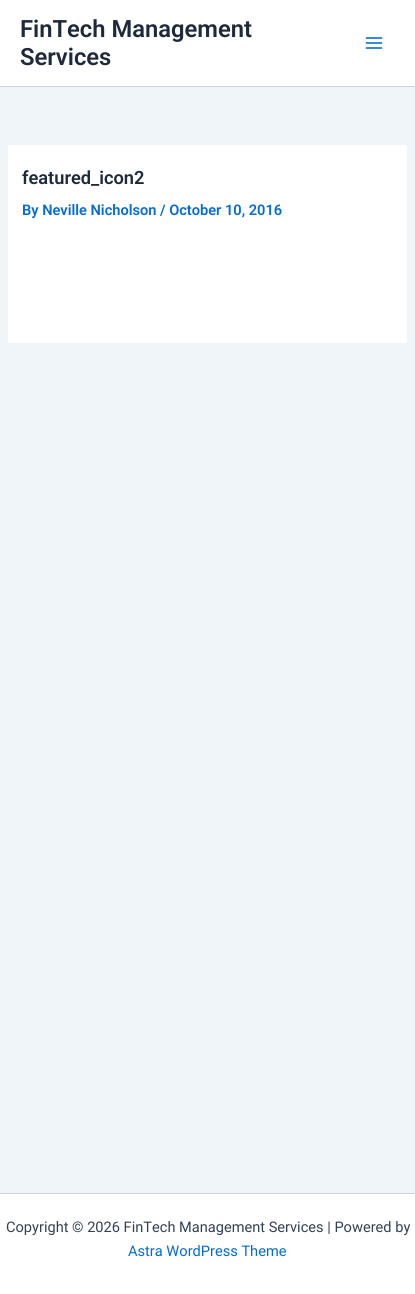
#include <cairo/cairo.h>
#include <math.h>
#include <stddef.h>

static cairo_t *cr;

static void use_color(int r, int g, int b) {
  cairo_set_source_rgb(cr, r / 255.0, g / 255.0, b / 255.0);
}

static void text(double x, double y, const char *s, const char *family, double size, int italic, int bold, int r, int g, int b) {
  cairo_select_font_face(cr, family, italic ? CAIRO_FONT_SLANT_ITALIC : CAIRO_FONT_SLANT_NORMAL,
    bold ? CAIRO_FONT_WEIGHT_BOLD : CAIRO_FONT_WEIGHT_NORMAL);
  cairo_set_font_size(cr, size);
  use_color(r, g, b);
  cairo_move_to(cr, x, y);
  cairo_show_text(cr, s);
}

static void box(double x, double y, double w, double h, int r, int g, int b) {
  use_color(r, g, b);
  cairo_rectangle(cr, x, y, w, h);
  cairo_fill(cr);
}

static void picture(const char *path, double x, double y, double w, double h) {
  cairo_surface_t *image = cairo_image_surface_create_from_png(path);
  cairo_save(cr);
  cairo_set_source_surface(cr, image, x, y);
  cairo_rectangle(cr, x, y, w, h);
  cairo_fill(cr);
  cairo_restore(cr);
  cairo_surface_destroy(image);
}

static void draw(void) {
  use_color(240, 245, 250);
  cairo_paint(cr);
  box(0, 0, 415, 86, 255, 255, 255);
  box(0, 86, 415, 1, 209, 213, 219);
  picture("img_01.png", 365, 37, 18, 12);
  box(8, 145, 399, 198, 255, 255, 255);
  box(0, 1194, 415, 100, 255, 255, 255);
  box(0, 1193, 415, 1, 209, 213, 219);
  text(20, 37, "FinTech Management", "Roboto SemiBold", 23.75, 0, 0, 30, 41, 59);
  text(20, 65, "Services", "Roboto SemiBold", 23.75, 0, 0, 30, 41, 59);
  text(22, 184, "featured_icon2", "Roboto SemiBold", 18.25, 0, 0, 30, 41, 59);
  text(22, 215, "By Neville Nicholson / October 10, 2016", "Roboto SemiBold", 14.6, 0, 0, 4, 107, 210);
  text(6, 1232, "Copyright © 2026 FinTech Management Services | Powered by", "Roboto", 14.6, 0, 0, 51, 65, 85);
  text(128, 1256, "Astra WordPress Theme", "Roboto", 14.6, 0, 0, 4, 107, 210);
}

int main(void) {
  cairo_surface_t *surface = cairo_image_surface_create(CAIRO_FORMAT_RGB24, 415, 1294);
  cr = cairo_create(surface);
  cairo_font_options_t *options = cairo_font_options_create();
  cairo_font_options_set_hint_metrics(options, CAIRO_HINT_METRICS_OFF);
  cairo_font_options_set_hint_style(options, CAIRO_HINT_STYLE_NONE);
  cairo_set_font_options(cr, options);
  cairo_set_miter_limit(cr, 4);
  draw();
  cairo_surface_write_to_png(surface, "out.png");
  cairo_font_options_destroy(options);
  cairo_destroy(cr);
  cairo_surface_destroy(surface);
  return 0;
}
